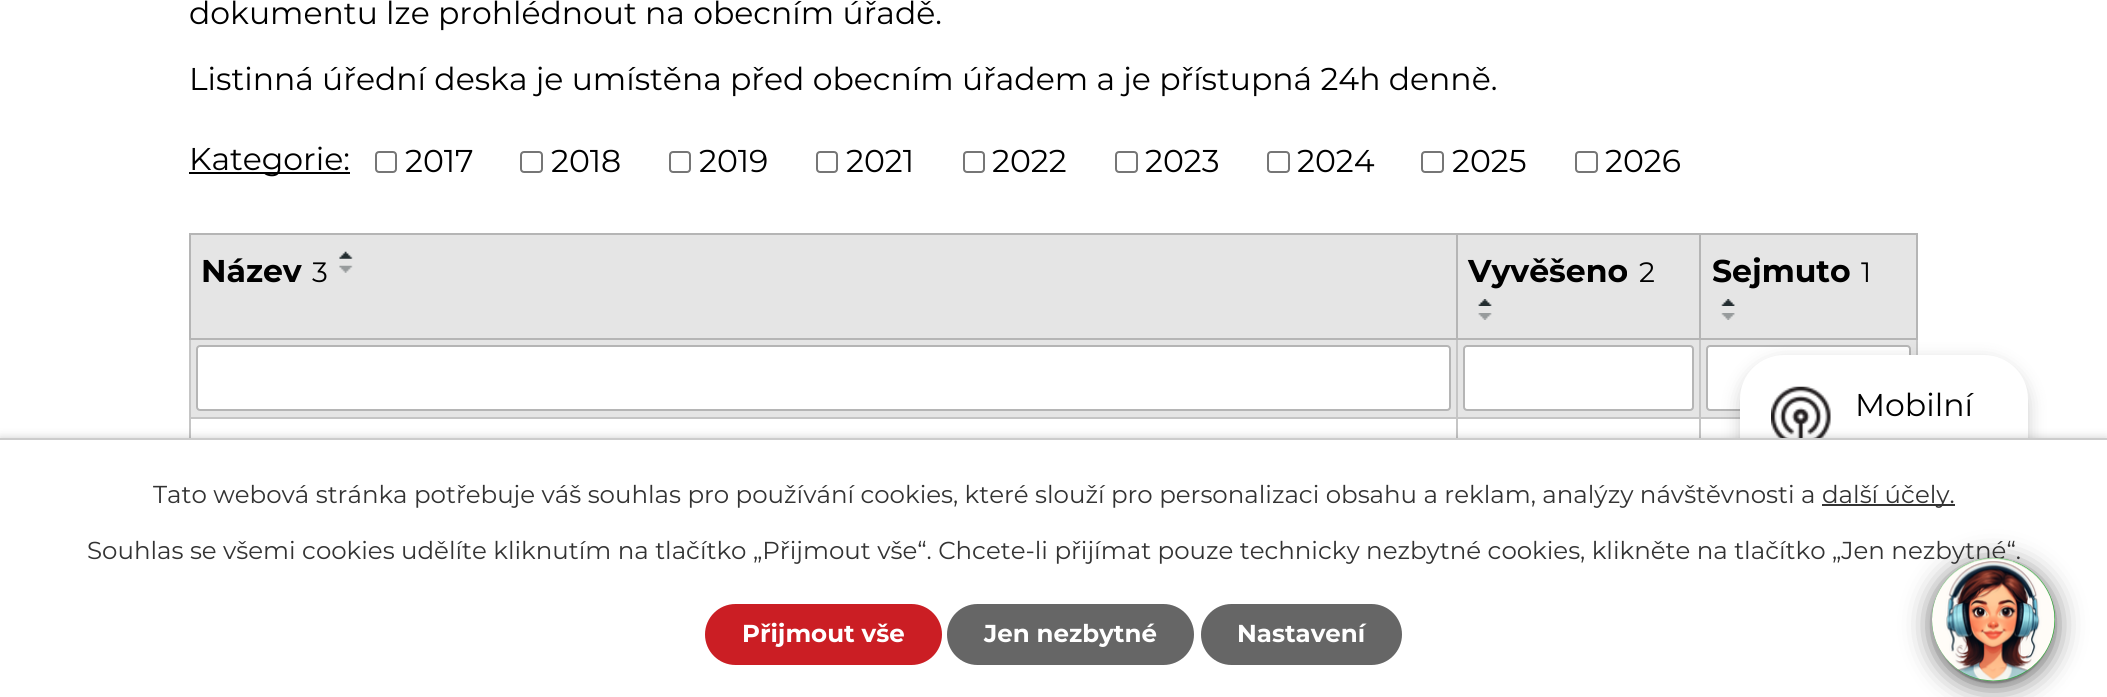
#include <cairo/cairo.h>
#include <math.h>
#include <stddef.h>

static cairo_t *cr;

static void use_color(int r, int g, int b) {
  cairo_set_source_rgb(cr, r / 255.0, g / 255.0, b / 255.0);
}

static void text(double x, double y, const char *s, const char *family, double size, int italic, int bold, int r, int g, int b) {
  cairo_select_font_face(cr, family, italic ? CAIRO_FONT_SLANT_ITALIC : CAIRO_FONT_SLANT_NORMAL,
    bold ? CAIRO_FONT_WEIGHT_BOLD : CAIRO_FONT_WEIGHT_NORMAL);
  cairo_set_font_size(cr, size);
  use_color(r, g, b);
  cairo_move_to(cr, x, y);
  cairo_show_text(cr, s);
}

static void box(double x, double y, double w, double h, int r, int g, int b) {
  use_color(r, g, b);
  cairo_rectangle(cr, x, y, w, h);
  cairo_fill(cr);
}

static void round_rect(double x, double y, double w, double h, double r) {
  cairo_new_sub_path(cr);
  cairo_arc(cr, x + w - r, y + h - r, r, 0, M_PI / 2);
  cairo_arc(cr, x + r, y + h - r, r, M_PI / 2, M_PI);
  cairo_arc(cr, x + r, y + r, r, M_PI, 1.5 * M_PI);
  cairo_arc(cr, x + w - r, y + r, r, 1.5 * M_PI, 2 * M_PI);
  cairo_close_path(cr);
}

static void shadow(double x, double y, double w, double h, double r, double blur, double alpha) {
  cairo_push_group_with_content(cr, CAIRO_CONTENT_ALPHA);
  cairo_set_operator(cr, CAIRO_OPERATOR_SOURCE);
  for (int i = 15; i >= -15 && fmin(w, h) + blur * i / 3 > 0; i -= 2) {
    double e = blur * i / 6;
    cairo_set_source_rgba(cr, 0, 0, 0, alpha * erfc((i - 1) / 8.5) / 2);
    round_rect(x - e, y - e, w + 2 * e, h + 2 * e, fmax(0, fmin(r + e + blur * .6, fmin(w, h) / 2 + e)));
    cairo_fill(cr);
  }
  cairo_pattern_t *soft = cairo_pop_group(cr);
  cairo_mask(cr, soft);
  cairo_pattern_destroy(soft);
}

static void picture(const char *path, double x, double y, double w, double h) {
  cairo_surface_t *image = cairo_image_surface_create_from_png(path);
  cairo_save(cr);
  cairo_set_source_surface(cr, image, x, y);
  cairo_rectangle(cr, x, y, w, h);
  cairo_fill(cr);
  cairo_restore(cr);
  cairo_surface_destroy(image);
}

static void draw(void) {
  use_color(255, 255, 255);
  cairo_paint(cr);
  box(189, 172, 161, 2, 0, 0, 0);
  round_rect(376, 152, 20, 20, 3);
  use_color(118, 118, 118);
  cairo_stroke(cr);
  round_rect(521, 152, 21, 20, 3);
  cairo_stroke(cr);
  round_rect(670, 152, 20, 20, 3);
  cairo_stroke(cr);
  round_rect(817, 152, 20, 20, 3);
  cairo_stroke(cr);
  round_rect(964, 152, 20, 20, 3);
  cairo_stroke(cr);
  round_rect(1116, 152, 21, 20, 3);
  cairo_stroke(cr);
  round_rect(1268, 152, 21, 20, 3);
  cairo_stroke(cr);
  round_rect(1422, 152, 21, 20, 3);
  cairo_stroke(cr);
  round_rect(1576, 152, 21, 20, 3);
  cairo_stroke(cr);
  box(191, 235, 1265, 103, 229, 229, 229);
  box(1699, 233, 219, 2, 181, 181, 181);
  box(1916, 338, 2, 17, 197, 197, 197);
  box(1916, 233, 2, 107, 181, 181, 181);
  box(191, 340, 1725, 77, 229, 229, 229);
  box(1699, 417, 41, 2, 197, 197, 197);
  box(1699, 417, 2, 21, 197, 197, 197);
  box(1456, 417, 245, 2, 197, 197, 197);
  box(1699, 338, 2, 80, 197, 197, 197);
  box(1699, 338, 219, 2, 181, 181, 181);
  box(1699, 233, 2, 107, 181, 181, 181);
  box(1456, 233, 245, 2, 181, 181, 181);
  box(1456, 417, 2, 21, 197, 197, 197);
  box(189, 417, 1269, 2, 197, 197, 197);
  box(1456, 338, 2, 80, 197, 197, 197);
  box(1456, 338, 245, 2, 181, 181, 181);
  box(1456, 233, 2, 107, 181, 181, 181);
  box(189, 233, 1269, 2, 181, 181, 181);
  box(189, 338, 2, 100, 197, 197, 197);
  box(189, 338, 1269, 2, 181, 181, 181);
  box(189, 233, 2, 107, 181, 181, 181);
  picture("img_01.png", 339, 251, 14, 8);
  picture("img_02.png", 339, 265, 14, 8);
  box(1458, 235, 241, 103, 229, 229, 229);
  picture("img_03.png", 1478, 299, 14, 7);
  picture("img_04.png", 1478, 313, 14, 7);
  box(1701, 235, 215, 103, 229, 229, 229);
  picture("img_05.png", 1721, 299, 14, 7);
  picture("img_06.png", 1721, 313, 14, 7);
  use_color(255, 255, 255);
  round_rect(197, 346, 1253, 64, 3);
  cairo_fill_preserve(cr);
  use_color(181, 181, 181);
  cairo_stroke(cr);
  use_color(255, 255, 255);
  round_rect(1464, 346, 229, 64, 3);
  cairo_fill_preserve(cr);
  use_color(181, 181, 181);
  cairo_stroke(cr);
  use_color(255, 255, 255);
  round_rect(1707, 346, 203, 64, 3);
  cairo_fill_preserve(cr);
  use_color(181, 181, 181);
  cairo_stroke(cr);
  use_color(0, 0, 0);
  shadow(1740, 361, 288, 264, 44, 9, 0.2);
  use_color(255, 255, 255);
  round_rect(1740, 355, 288, 265, 44);
  cairo_fill(cr);
  picture("img_07.png", 1771, 386, 60, 52);
  use_color(0, 0, 0);
  shadow(0, 438, 2107, 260, 0, 4.5, 0.2);
  box(0, 440, 2107, 257, 255, 255, 255);
  box(0, 438, 2107, 2, 204, 204, 204);
  box(1822, 504, 133, 2, 51, 51, 51);
  use_color(203, 30, 36);
  round_rect(705, 604, 237, 61, 30.5);
  cairo_fill(cr);
  use_color(102, 102, 102);
  round_rect(947, 604, 247, 61, 30.5);
  cairo_fill(cr);
  round_rect(1201, 604, 201, 61, 30.5);
  cairo_fill(cr);
  use_color(0, 0, 0);
  shadow(1932, 560, 123, 123, 61.5, 4.5, 0.12);
  shadow(1936, 567, 115, 116, 57.5, 1, 0.2);
  shadow(1932, 564, 123, 122, 61, 14, 0.6);
  text(189, 24, "dokumentu lze prohlédnout na obecním úřadě.", "Montserrat", 31.5, 0, 0, 0, 0, 0);
  text(189, 90, "Listinná úřední deska je umístěna před obecním úřadem a je přístupná 24h denně.", "Montserrat", 31.5, 0, 0, 0, 0, 0);
  text(189, 170, "Kategorie:", "Montserrat", 31.5, 0, 0, 0, 0, 0);
  text(405, 172, "2017", "Montserrat", 31.5, 0, 0, 0, 0, 0);
  text(551, 172, "2018", "Montserrat", 31.5, 0, 0, 0, 0, 0);
  text(699, 172, "2019", "Montserrat", 31.5, 0, 0, 0, 0, 0);
  text(846, 172, "2021", "Montserrat", 31.5, 0, 0, 0, 0, 0);
  text(992, 172, "2022", "Montserrat", 31.5, 0, 0, 0, 0, 0);
  text(1145, 172, "2023", "Montserrat", 31.5, 0, 0, 0, 0, 0);
  text(1297, 172, "2024", "Montserrat", 31.5, 0, 0, 0, 0, 0);
  text(1452, 172, "2025", "Montserrat", 31.5, 0, 0, 0, 0, 0);
  text(1605, 172, "2026", "Montserrat", 31.5, 0, 0, 0, 0, 0);
  text(201, 282, "Název", "Montserrat", 31.5, 0, 1, 0, 0, 0);
  text(312, 282, "3", "Montserrat", 28, 0, 0, 0, 0, 0);
  text(1468, 282, "Vyvěšeno", "Montserrat", 31.5, 0, 1, 0, 0, 0);
  text(1639, 282, "2", "Montserrat", 28, 0, 0, 0, 0, 0);
  text(1712, 282, "Sejmuto", "Montserrat", 31.5, 0, 1, 0, 0, 0);
  text(1861, 282, "1", "Montserrat", 28, 0, 0, 0, 0, 0);
  text(1855, 416, "Mobilní", "Montserrat", 31.5, 0, 0, 0, 0, 0);
  text(153, 503, "Tato webová stránka potřebuje váš souhlas pro používání cookies, které slouží pro personalizaci obsahu a reklam, analýzy návštěvnosti a", "Montserrat", 24.5, 0, 0, 51, 51, 51);
  text(1822, 503, "další účely.", "Montserrat", 24.5, 0, 0, 51, 51, 51);
  text(87, 559, "Souhlas se všemi cookies udělíte kliknutím na tlačítko „Přijmout vše“. Chcete-li přijímat pouze technicky nezbytné cookies, klikněte na tlačítko „Jen nezbytné“.", "Montserrat", 24.5, 0, 0, 51, 51, 51);
  text(742, 642, "Přijmout vše", "Montserrat", 24.5, 0, 1, 255, 255, 255);
  text(984, 642, "Jen nezbytné", "Montserrat", 24.5, 0, 1, 255, 255, 255);
  text(1237, 642, "Nastavení", "Montserrat", 24.5, 0, 1, 255, 255, 255);
  use_color(9, 159, 19);
  cairo_new_path(cr);
  cairo_arc(cr, 1993.5, 619.5, 61.5, 0, 2 * M_PI);
  cairo_fill(cr);
  picture("img_08.png", 1932, 558, 123, 124);
}

int main(void) {
  cairo_surface_t *surface = cairo_image_surface_create(CAIRO_FORMAT_RGB24, 2107, 697);
  cr = cairo_create(surface);
  cairo_font_options_t *options = cairo_font_options_create();
  cairo_font_options_set_hint_metrics(options, CAIRO_HINT_METRICS_OFF);
  cairo_font_options_set_hint_style(options, CAIRO_HINT_STYLE_NONE);
  cairo_set_font_options(cr, options);
  cairo_set_miter_limit(cr, 4);
  draw();
  cairo_surface_write_to_png(surface, "out.png");
  cairo_font_options_destroy(options);
  cairo_destroy(cr);
  cairo_surface_destroy(surface);
  return 0;
}
